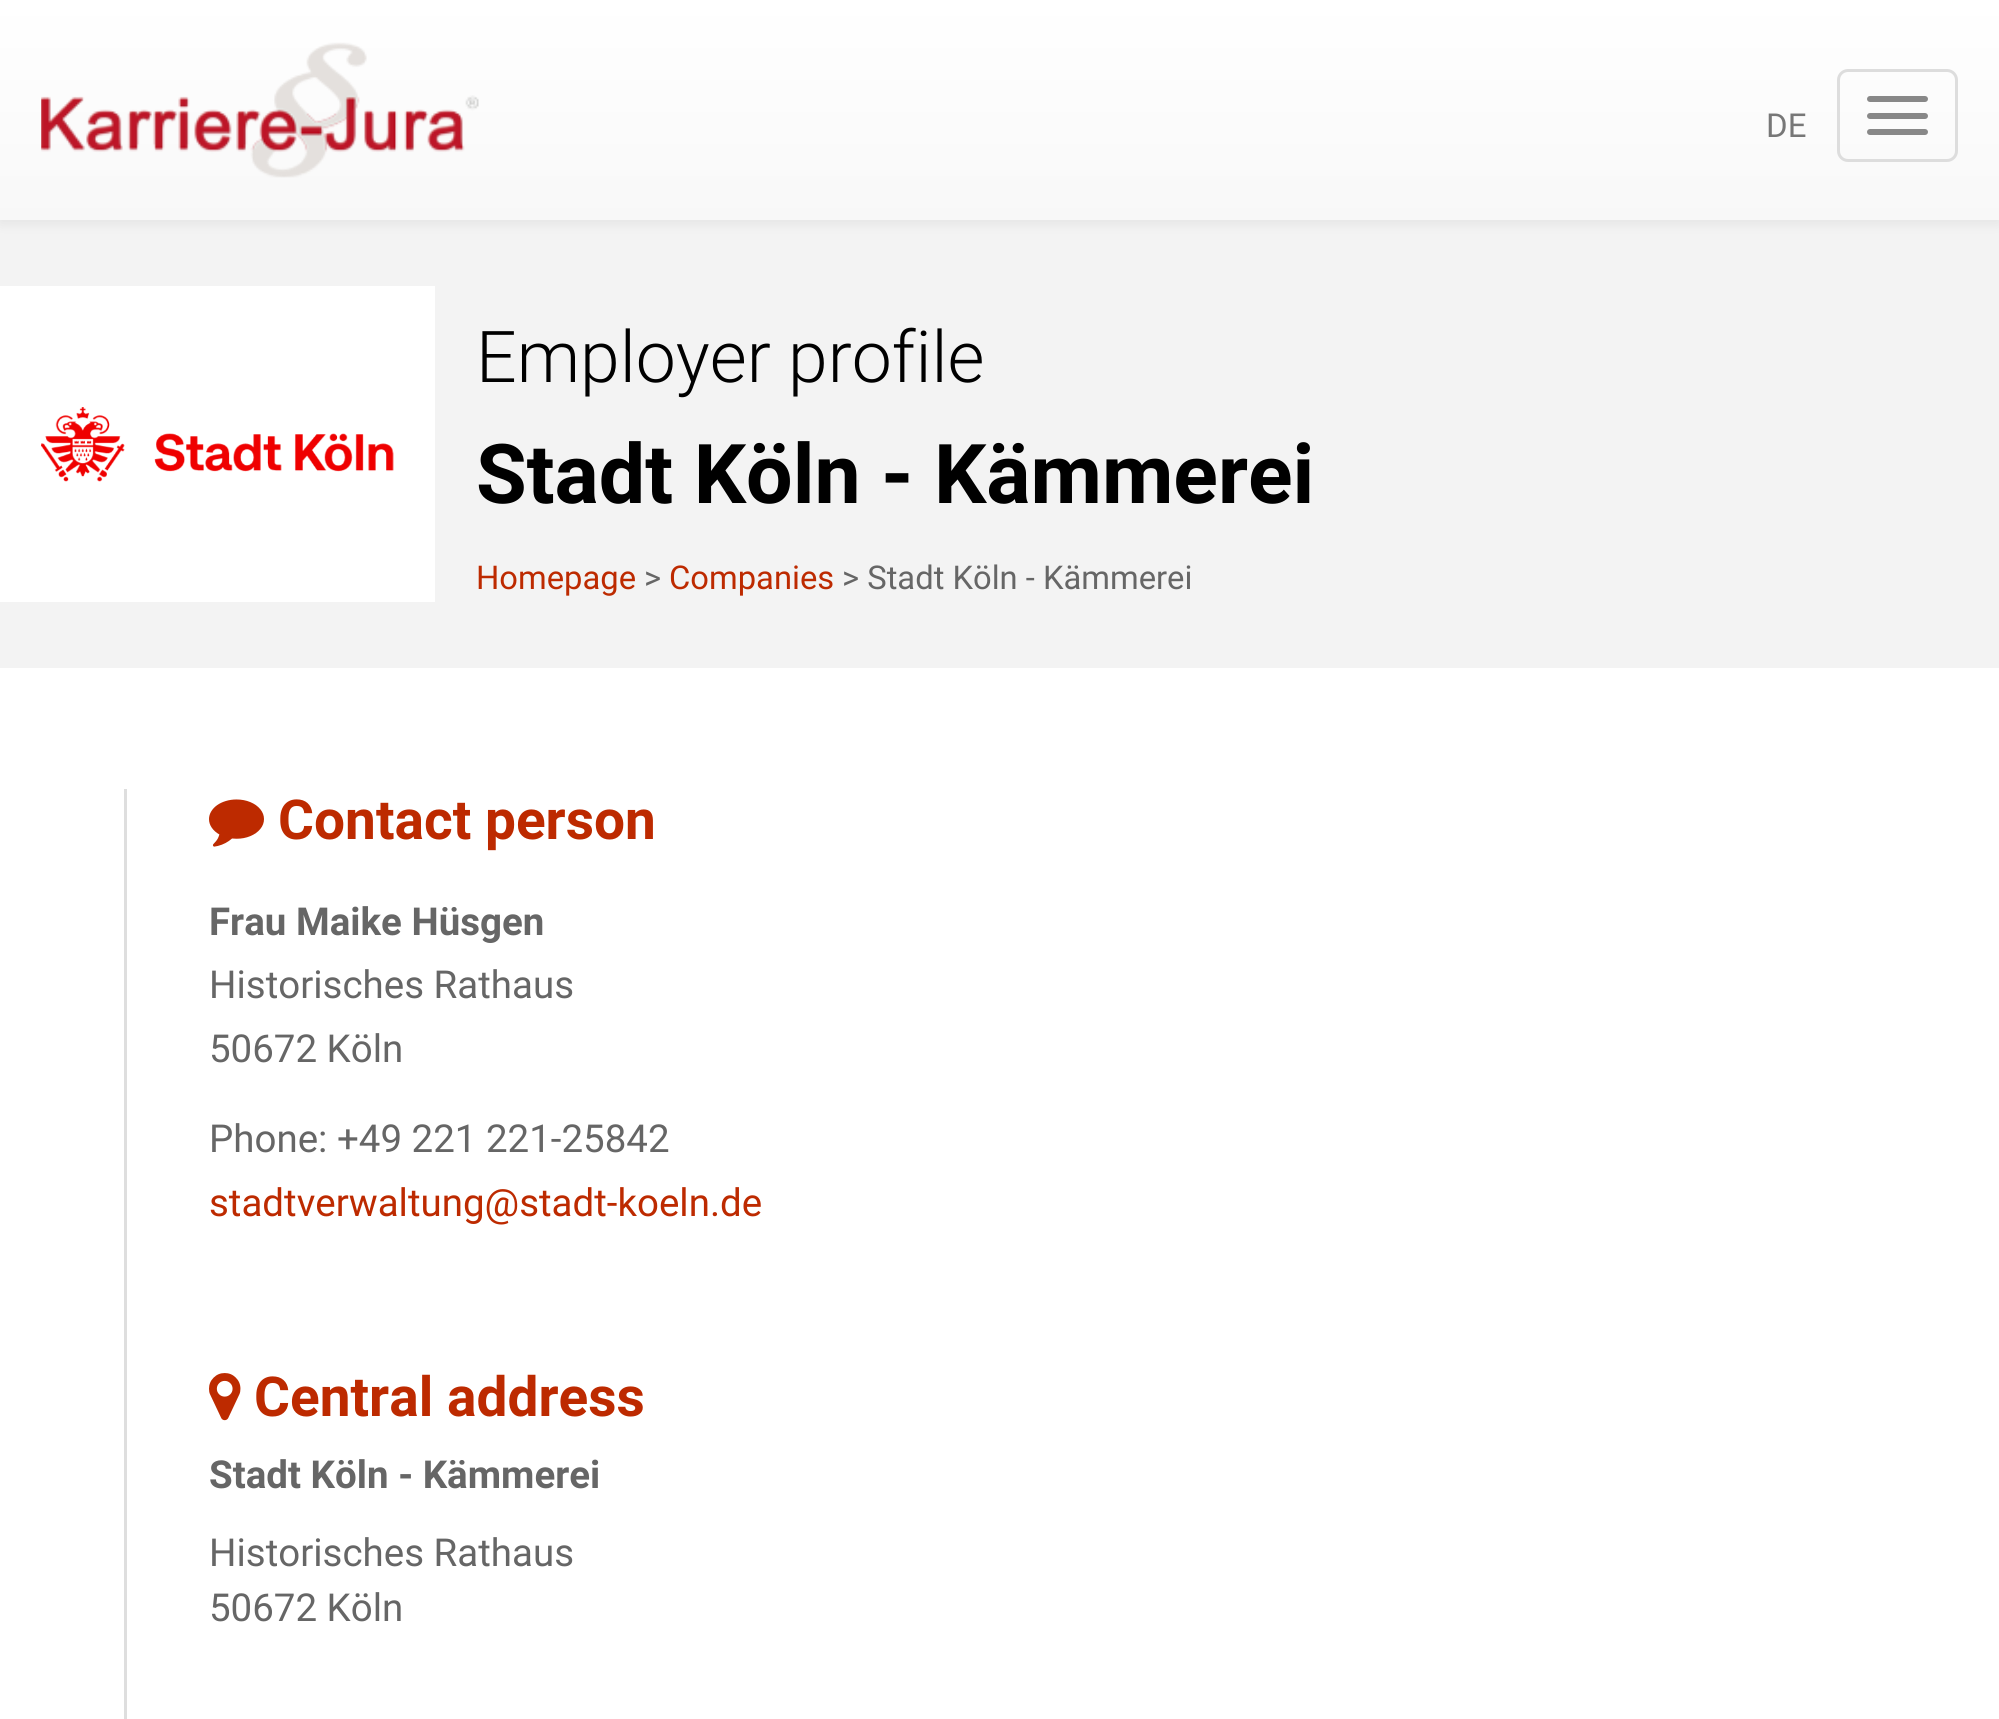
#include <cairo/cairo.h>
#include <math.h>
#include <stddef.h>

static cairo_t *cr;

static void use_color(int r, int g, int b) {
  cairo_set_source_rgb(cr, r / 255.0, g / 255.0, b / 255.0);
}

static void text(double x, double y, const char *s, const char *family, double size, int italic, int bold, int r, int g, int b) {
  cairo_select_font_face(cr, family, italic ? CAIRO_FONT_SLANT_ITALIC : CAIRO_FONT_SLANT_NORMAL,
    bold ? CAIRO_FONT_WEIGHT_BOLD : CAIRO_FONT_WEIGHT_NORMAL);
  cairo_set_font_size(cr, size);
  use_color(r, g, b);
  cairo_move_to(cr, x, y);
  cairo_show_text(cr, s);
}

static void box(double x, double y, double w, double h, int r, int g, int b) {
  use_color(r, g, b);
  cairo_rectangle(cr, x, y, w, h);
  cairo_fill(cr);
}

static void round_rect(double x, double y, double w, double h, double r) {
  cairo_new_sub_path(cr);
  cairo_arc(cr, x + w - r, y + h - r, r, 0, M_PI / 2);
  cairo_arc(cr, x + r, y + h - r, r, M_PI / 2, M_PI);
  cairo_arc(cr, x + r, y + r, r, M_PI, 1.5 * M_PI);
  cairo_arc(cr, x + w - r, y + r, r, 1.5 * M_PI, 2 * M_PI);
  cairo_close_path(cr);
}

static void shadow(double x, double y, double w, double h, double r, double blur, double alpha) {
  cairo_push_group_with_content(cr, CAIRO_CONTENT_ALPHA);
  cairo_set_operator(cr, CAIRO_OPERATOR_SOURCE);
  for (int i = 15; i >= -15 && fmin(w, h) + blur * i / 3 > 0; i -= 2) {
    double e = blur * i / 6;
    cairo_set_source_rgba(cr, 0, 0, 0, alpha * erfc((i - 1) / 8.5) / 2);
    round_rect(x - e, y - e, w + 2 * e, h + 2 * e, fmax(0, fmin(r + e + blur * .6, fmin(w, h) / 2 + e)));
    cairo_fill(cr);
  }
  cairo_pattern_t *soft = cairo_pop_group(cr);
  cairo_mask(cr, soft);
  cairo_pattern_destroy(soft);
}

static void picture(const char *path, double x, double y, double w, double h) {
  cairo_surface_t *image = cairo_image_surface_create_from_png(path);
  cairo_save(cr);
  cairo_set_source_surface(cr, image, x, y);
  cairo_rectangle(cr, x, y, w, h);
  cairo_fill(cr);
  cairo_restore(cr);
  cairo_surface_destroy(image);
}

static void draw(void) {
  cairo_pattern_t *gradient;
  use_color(255, 255, 255);
  cairo_paint(cr);
  box(0, 220, 1999, 448, 243, 243, 243);
  use_color(0, 0, 0);
  shadow(0, 3, 1999, 220, 0, 7, 0.07);
  gradient = cairo_pattern_create_linear(1000, 0, 1000, 220);
  cairo_pattern_add_color_stop_rgba(gradient, 0, 1, 1, 1, 1);
  cairo_pattern_add_color_stop_rgba(gradient, 1, 0.973, 0.973, 0.973, 1);
  cairo_set_source(cr, gradient);
  cairo_pattern_destroy(gradient);
  cairo_rectangle(cr, 0, 0, 1999, 220);
  cairo_fill(cr);
  picture("img_01.png", 41, 42, 438, 136);
  round_rect(1838.5, 70.5, 118, 90, 9.5);
  use_color(221, 221, 221);
  cairo_set_line_width(cr, 3);
  cairo_stroke(cr);
  use_color(136, 136, 136);
  round_rect(1867, 96, 61, 6, 3);
  cairo_fill(cr);
  round_rect(1867, 113, 61, 6, 3);
  cairo_fill(cr);
  round_rect(1867, 129, 61, 6, 3);
  cairo_fill(cr);
  box(0, 286, 435, 316, 255, 255, 255);
  picture("img_02.png", 41, 407, 353, 75);
  box(124, 789, 3, 930, 222, 222, 222);
  picture("img_03.png", 209, 799, 55, 48);
  picture("img_04.png", 209, 1373, 32, 48);
  text(1766, 137, "DE", "Roboto", 33, 0, 0, 119, 119, 119);
  text(476, 382, "Employer profile", "Roboto Light", 71.5, 0, 0, 0, 0, 0);
  text(476, 503, "Stadt Köln - Kämmerei", "Roboto", 82.5, 0, 1, 0, 0, 0);
  text(476, 589, "Homepage", "Roboto", 32.75, 0, 0, 189, 42, 0);
  text(644, 589, ">", "Roboto", 32.75, 0, 0, 102, 102, 102);
  text(669, 589, "Companies", "Roboto", 32.75, 0, 0, 189, 42, 0);
  text(842, 589, "> Stadt Köln - Kämmerei", "Roboto", 32.75, 0, 0, 102, 102, 102);
  text(278, 839, "Contact person", "Roboto", 55, 0, 1, 189, 42, 0);
  text(209, 935, "Frau Maike Hüsgen", "Roboto", 38.5, 0, 1, 102, 102, 102);
  text(209, 998, "Historisches Rathaus", "Roboto", 38.5, 0, 0, 102, 102, 102);
  text(209, 1062, "50672 Köln", "Roboto", 38.5, 0, 0, 102, 102, 102);
  text(209, 1152, "Phone: +49 221 221-25842", "Roboto", 38.5, 0, 0, 102, 102, 102);
  text(209, 1216, "stadtverwaltung@stadt-koeln.de", "Roboto", 38.5, 0, 0, 189, 42, 0);
  text(254, 1416, "Central address", "Roboto", 55, 0, 1, 189, 42, 0);
  text(209, 1488, "Stadt Köln - Kämmerei", "Roboto", 38.5, 0, 1, 102, 102, 102);
  text(209, 1566, "Historisches Rathaus", "Roboto", 38.5, 0, 0, 102, 102, 102);
  text(209, 1621, "50672 Köln", "Roboto", 38.5, 0, 0, 102, 102, 102);
}

int main(void) {
  cairo_surface_t *surface = cairo_image_surface_create(CAIRO_FORMAT_RGB24, 1999, 1719);
  cr = cairo_create(surface);
  cairo_font_options_t *options = cairo_font_options_create();
  cairo_font_options_set_hint_metrics(options, CAIRO_HINT_METRICS_OFF);
  cairo_font_options_set_hint_style(options, CAIRO_HINT_STYLE_NONE);
  cairo_set_font_options(cr, options);
  cairo_set_miter_limit(cr, 4);
  draw();
  cairo_surface_write_to_png(surface, "out.png");
  cairo_font_options_destroy(options);
  cairo_destroy(cr);
  cairo_surface_destroy(surface);
  return 0;
}
